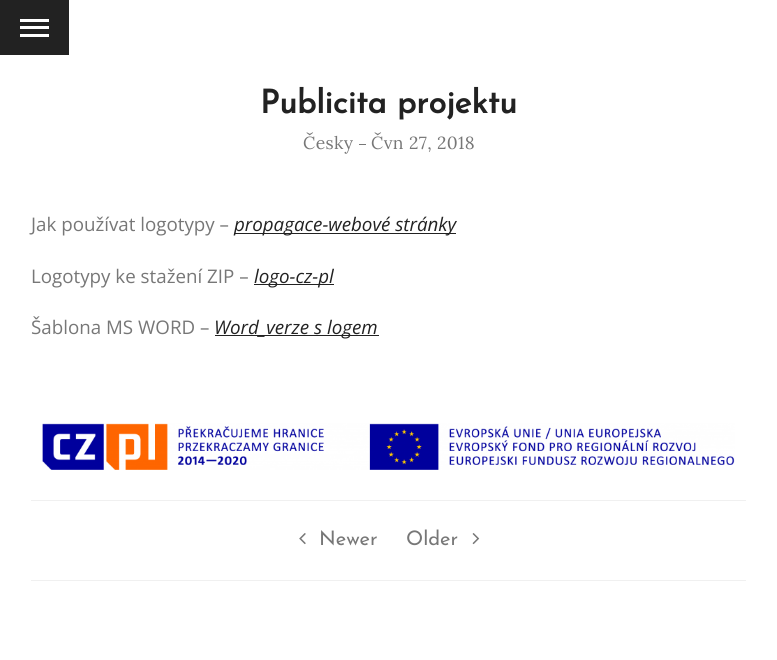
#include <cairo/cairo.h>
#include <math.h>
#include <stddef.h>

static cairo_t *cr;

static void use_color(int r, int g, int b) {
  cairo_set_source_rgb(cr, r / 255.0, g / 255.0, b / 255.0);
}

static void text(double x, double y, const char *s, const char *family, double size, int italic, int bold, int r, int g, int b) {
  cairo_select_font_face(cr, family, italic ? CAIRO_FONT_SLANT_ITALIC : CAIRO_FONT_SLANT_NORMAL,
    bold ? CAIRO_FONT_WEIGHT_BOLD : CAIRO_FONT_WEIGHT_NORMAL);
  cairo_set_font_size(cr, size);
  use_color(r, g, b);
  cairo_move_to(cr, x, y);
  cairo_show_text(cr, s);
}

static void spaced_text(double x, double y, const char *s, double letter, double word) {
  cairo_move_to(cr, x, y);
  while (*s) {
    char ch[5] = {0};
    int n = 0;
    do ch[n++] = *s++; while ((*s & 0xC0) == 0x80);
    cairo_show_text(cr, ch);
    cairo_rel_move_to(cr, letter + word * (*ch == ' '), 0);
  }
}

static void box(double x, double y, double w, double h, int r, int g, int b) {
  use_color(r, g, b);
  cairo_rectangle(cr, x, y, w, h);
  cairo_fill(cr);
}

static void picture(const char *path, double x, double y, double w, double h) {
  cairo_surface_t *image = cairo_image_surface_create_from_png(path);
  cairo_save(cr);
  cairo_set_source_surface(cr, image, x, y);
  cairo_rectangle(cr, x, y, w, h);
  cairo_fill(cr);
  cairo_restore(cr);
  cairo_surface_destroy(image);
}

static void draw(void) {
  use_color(255, 255, 255);
  cairo_paint(cr);
  box(0, 0, 69, 55, 34, 34, 34);
  box(20, 26, 29, 3, 255, 255, 255);
  box(20, 19, 29, 3, 255, 255, 255);
  box(20, 34, 29, 3, 255, 255, 255);
  box(359, 144, 7, 1, 119, 119, 119);
  box(234, 233, 222, 1, 34, 34, 34);
  box(254, 284, 80, 1, 34, 34, 34);
  box(215, 335, 164, 1, 34, 34, 34);
  picture("img_01.png", 42, 423, 693, 47);
  box(31, 500, 715, 1, 240, 240, 240);
  box(31, 580, 715, 1, 240, 240, 240);
  picture("img_02.png", 299, 533, 7, 12);
  picture("img_03.png", 472, 533, 8, 12);
  text(260, 113, "Publicita projektu", "Josefin Sans", 32.5, 0, 1, 34, 34, 34);
  cairo_select_font_face(cr, "Lora", CAIRO_FONT_SLANT_NORMAL, CAIRO_FONT_WEIGHT_NORMAL);
  cairo_set_font_size(cr, 17.5);
  use_color(119, 119, 119);
  spaced_text(303, 149, "Česky", 0.4, 0);
  spaced_text(371, 149, "Čvn 27, 2018", 0.4, 0);
  text(31, 231, "Jak používat logotypy –", "Open Sans", 18.75, 0, 0, 119, 119, 119);
  text(234, 231, "propagace-webové stránky", "Open Sans", 18.75, 1, 0, 34, 34, 34);
  text(31, 283, "Logotypy ke stažení ZIP –", "Open Sans", 18.75, 0, 0, 119, 119, 119);
  text(254, 283, "logo-cz-pl", "Open Sans", 18.75, 1, 0, 34, 34, 34);
  text(31, 334, "Šablona MS WORD –", "Open Sans", 18.75, 0, 0, 119, 119, 119);
  text(214, 334, "Word_verze s logem", "Open Sans", 18.75, 1, 0, 34, 34, 34);
  text(319, 545, "Newer", "Josefin Sans Thin", 20, 0, 0, 119, 119, 119);
  text(406, 545, "Older", "Josefin Sans Thin", 20, 0, 0, 119, 119, 119);
}

int main(void) {
  cairo_surface_t *surface = cairo_image_surface_create(CAIRO_FORMAT_RGB24, 777, 660);
  cr = cairo_create(surface);
  cairo_font_options_t *options = cairo_font_options_create();
  cairo_font_options_set_hint_metrics(options, CAIRO_HINT_METRICS_OFF);
  cairo_font_options_set_hint_style(options, CAIRO_HINT_STYLE_NONE);
  cairo_set_font_options(cr, options);
  cairo_set_miter_limit(cr, 4);
  draw();
  cairo_surface_write_to_png(surface, "out.png");
  cairo_font_options_destroy(options);
  cairo_destroy(cr);
  cairo_surface_destroy(surface);
  return 0;
}
